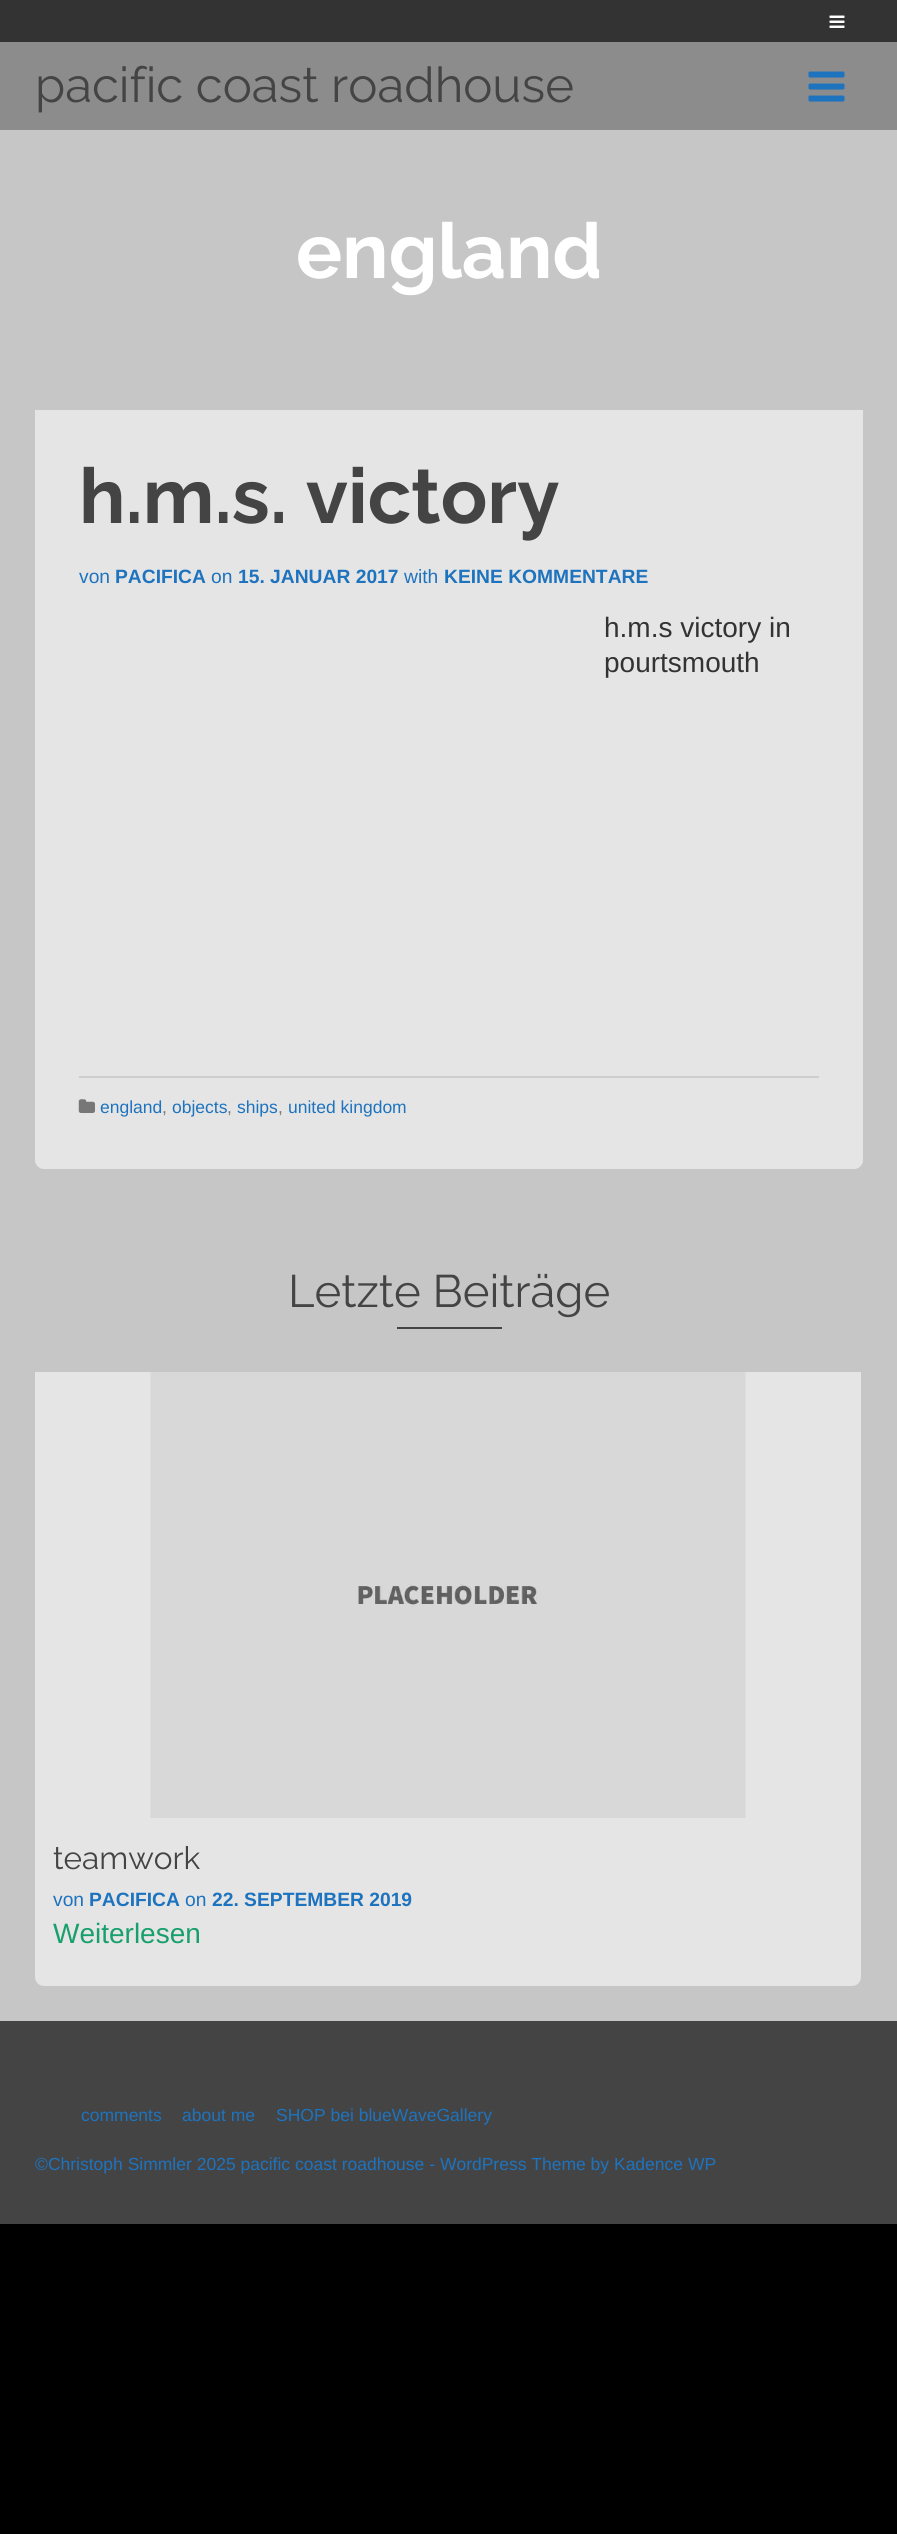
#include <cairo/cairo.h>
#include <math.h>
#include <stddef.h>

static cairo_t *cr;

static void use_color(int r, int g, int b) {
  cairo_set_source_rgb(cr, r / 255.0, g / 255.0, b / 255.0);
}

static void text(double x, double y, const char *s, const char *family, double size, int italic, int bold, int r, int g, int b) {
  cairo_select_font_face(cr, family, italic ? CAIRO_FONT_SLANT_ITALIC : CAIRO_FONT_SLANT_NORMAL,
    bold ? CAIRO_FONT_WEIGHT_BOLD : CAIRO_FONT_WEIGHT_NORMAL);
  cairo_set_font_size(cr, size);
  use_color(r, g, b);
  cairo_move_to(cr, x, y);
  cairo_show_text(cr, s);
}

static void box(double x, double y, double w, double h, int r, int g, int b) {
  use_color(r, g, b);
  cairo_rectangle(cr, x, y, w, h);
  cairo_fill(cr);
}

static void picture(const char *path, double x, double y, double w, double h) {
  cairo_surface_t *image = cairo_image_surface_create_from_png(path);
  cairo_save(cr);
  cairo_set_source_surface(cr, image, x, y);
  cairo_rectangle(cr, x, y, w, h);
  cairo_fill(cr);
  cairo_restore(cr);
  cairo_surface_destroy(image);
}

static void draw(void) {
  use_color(0, 0, 0);
  cairo_paint(cr);
  box(0, 42, 897, 88, 140, 140, 140);
  box(0, 0, 897, 42, 51, 51, 51);
  picture("img_01.png", 829, 15, 16, 13);
  picture("img_02.png", 808, 71, 37, 31);
  box(0, 130, 897, 1891, 198, 198, 198);
  use_color(229, 229, 229);
  cairo_new_path(cr);
  cairo_move_to(cr, 35, 410);
  cairo_line_to(cr, 863, 410);
  cairo_line_to(cr, 863, 1160);
  cairo_curve_to(cr, 863, 1165, 859, 1169, 854, 1169);
  cairo_line_to(cr, 44, 1169);
  cairo_curve_to(cr, 39, 1169, 35, 1165, 35, 1160);
  cairo_close_path(cr);
  cairo_fill(cr);
  box(79, 1076, 740, 2, 206, 206, 206);
  picture("img_03.png", 78, 1099, 17, 14);
  box(397, 1327, 105, 2, 68, 68, 68);
  use_color(229, 229, 229);
  cairo_new_path(cr);
  cairo_move_to(cr, 35, 1372);
  cairo_line_to(cr, 861, 1372);
  cairo_line_to(cr, 861, 1977);
  cairo_curve_to(cr, 861, 1982, 857, 1986, 852, 1986);
  cairo_line_to(cr, 44, 1986);
  cairo_curve_to(cr, 39, 1986, 35, 1982, 35, 1977);
  cairo_close_path(cr);
  cairo_fill(cr);
  picture("img_04.png", 150, 1372, 596, 446);
  box(0, 2021, 897, 203, 68, 68, 68);
  text(35, 102, "pacific coast roadhouse", "Raleway", 49, 0, 0, 68, 68, 68);
  text(296, 278, "england", "Raleway", 77, 0, 1, 255, 255, 255);
  text(79, 523, "h.m.s. victory", "Raleway", 77, 0, 1, 68, 68, 68);
  text(79, 583, "von", "Liberation Sans", 19.25, 0, 0, 30, 115, 190);
  text(115, 583, "PACIFICA", "Liberation Sans", 19.25, 0, 1, 30, 115, 190);
  text(211, 583, "on", "Liberation Sans", 19.25, 0, 0, 30, 115, 190);
  text(238, 583, "15. JANUAR 2017", "Liberation Sans", 19.25, 0, 1, 30, 115, 190);
  text(404, 583, "with", "Liberation Sans", 19.25, 0, 0, 30, 115, 190);
  text(444, 583, "KEINE KOMMENTARE", "Liberation Sans", 19.25, 0, 1, 30, 115, 190);
  text(604, 637, "h.m.s victory in", "Liberation Sans", 28, 0, 0, 51, 51, 51);
  text(604, 672, "pourtsmouth", "Liberation Sans", 28, 0, 0, 51, 51, 51);
  text(100, 1113, "england", "Liberation Sans", 17.5, 0, 0, 30, 115, 190);
  text(162, 1113, ",", "Liberation Sans", 17.5, 0, 0, 119, 119, 119);
  text(172, 1113, "objects", "Liberation Sans", 17.5, 0, 0, 30, 115, 190);
  text(227, 1113, ",", "Liberation Sans", 17.5, 0, 0, 119, 119, 119);
  text(237, 1113, "ships", "Liberation Sans", 17.5, 0, 0, 30, 115, 190);
  text(278, 1113, ",", "Liberation Sans", 17.5, 0, 0, 119, 119, 119);
  text(288, 1113, "united kingdom", "Liberation Sans", 17.5, 0, 0, 30, 115, 190);
  text(288, 1307, "Letzte Beiträge", "Raleway", 45.5, 0, 0, 68, 68, 68);
  text(53, 1869, "teamwork", "Raleway", 31.5, 0, 0, 68, 68, 68);
  text(53, 1906, "von", "Liberation Sans", 19.25, 0, 0, 30, 115, 190);
  text(89, 1906, "PACIFICA", "Liberation Sans", 19.25, 0, 1, 30, 115, 190);
  text(185, 1906, "on", "Liberation Sans", 19.25, 0, 0, 30, 115, 190);
  text(212, 1906, "22. SEPTEMBER 2019", "Liberation Sans", 19.25, 0, 1, 30, 115, 190);
  text(53, 1943, "Weiterlesen", "Liberation Sans", 28, 0, 0, 24, 160, 108);
  text(81, 2121, "comments", "Liberation Sans", 17.5, 0, 0, 30, 115, 190);
  text(182, 2121, "about me", "Liberation Sans", 17.5, 0, 0, 30, 115, 190);
  text(276, 2121, "SHOP bei blueWaveGallery", "Liberation Sans", 17.5, 0, 0, 30, 115, 190);
  text(35, 2170, "©Christoph Simmler 2025 pacific coast roadhouse - WordPress Theme by Kadence WP", "Liberation Sans", 17.5, 0, 0, 30, 115, 190);
}

int main(void) {
  cairo_surface_t *surface = cairo_image_surface_create(CAIRO_FORMAT_RGB24, 897, 2534);
  cr = cairo_create(surface);
  cairo_font_options_t *options = cairo_font_options_create();
  cairo_font_options_set_hint_metrics(options, CAIRO_HINT_METRICS_OFF);
  cairo_font_options_set_hint_style(options, CAIRO_HINT_STYLE_NONE);
  cairo_set_font_options(cr, options);
  cairo_set_miter_limit(cr, 4);
  draw();
  cairo_surface_write_to_png(surface, "out.png");
  cairo_font_options_destroy(options);
  cairo_destroy(cr);
  cairo_surface_destroy(surface);
  return 0;
}
